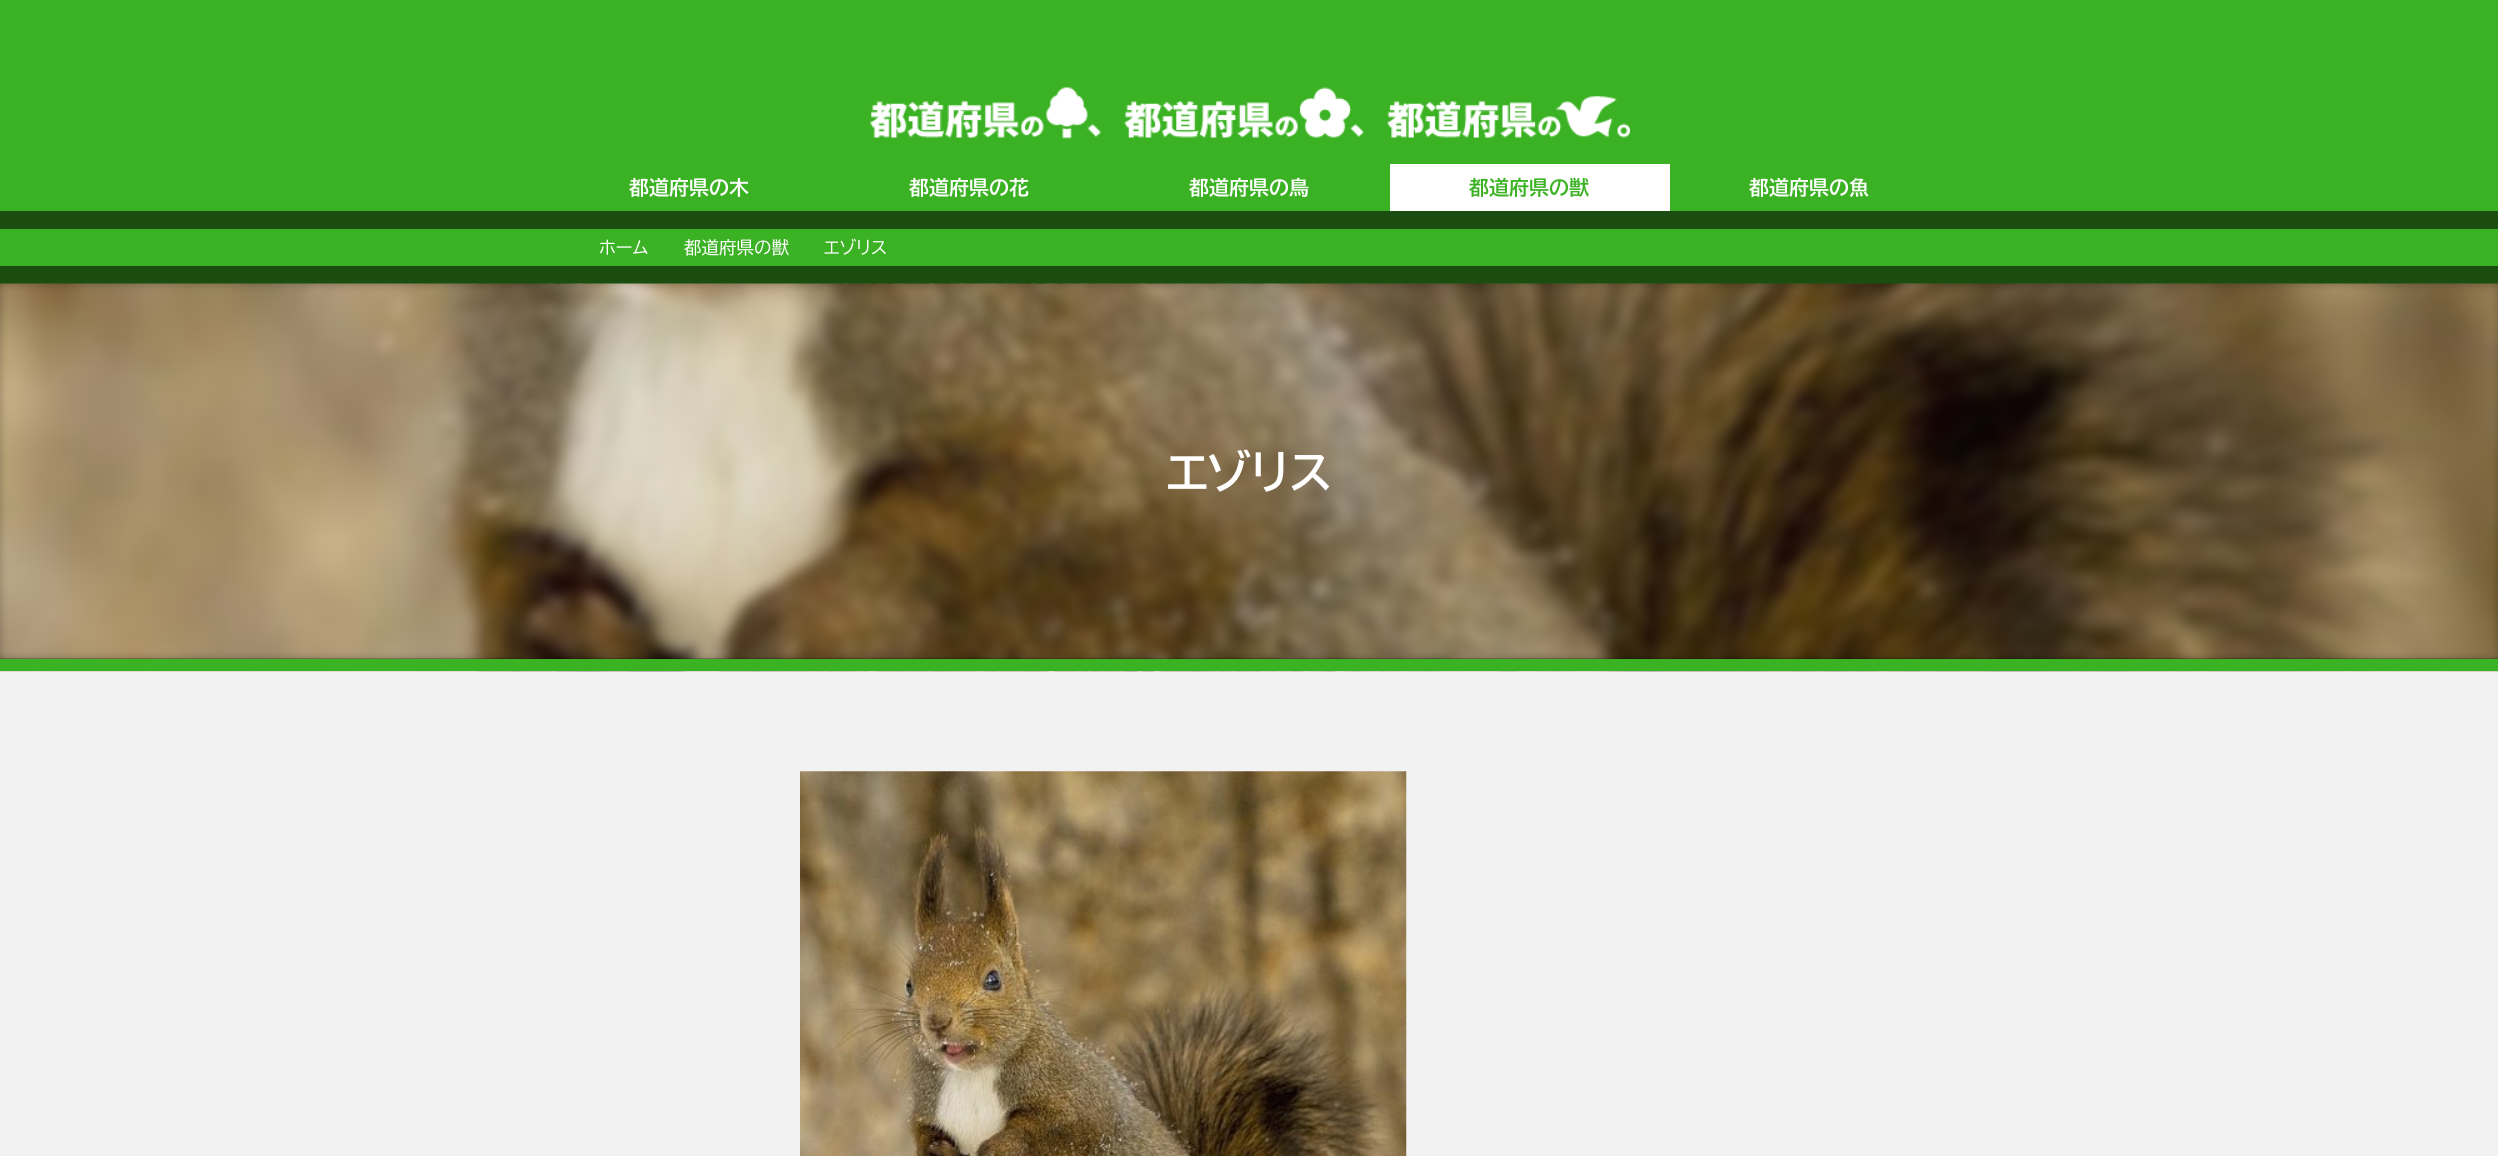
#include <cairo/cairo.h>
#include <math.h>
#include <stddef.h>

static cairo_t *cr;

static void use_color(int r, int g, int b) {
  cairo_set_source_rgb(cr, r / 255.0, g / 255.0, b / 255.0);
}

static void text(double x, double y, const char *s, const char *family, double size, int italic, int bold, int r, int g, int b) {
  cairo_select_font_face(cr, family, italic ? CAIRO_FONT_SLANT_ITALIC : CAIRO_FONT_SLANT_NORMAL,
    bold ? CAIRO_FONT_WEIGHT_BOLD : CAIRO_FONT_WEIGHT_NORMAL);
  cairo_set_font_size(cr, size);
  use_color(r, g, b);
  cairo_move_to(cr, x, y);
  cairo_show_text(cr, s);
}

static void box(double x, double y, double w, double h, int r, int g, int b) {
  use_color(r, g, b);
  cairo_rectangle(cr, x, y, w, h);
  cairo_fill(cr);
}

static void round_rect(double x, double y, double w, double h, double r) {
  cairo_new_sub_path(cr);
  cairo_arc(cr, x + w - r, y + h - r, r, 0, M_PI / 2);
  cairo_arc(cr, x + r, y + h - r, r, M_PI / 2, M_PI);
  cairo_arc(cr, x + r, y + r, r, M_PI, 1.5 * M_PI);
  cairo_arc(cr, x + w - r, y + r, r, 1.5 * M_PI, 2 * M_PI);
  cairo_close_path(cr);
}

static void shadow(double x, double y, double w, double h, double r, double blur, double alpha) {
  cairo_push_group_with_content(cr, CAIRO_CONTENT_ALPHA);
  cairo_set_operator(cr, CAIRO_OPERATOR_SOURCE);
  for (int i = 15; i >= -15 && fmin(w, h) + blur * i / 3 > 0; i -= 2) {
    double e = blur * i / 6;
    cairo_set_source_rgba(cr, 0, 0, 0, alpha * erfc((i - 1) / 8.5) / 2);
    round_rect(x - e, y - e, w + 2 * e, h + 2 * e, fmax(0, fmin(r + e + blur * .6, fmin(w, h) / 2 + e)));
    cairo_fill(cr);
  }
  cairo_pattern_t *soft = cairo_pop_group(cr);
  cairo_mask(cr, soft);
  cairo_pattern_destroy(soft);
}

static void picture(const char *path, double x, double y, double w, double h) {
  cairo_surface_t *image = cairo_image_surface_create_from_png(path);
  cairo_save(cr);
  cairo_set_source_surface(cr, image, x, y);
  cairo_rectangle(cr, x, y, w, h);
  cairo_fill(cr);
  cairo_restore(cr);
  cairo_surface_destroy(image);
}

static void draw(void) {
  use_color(26, 77, 15);
  cairo_paint(cr);
  box(0, 0, 2498, 211, 59, 178, 35);
  picture("img_01.png", 870, 87, 760, 52);
  box(1390, 164, 280, 47, 255, 255, 255);
  box(0, 229, 2498, 37, 59, 178, 35);
  box(0, 671, 2498, 485, 242, 242, 242);
  picture("img_02.png", 0, 283, 2498, 389);
  box(0, 659, 2498, 12, 59, 178, 35);
  cairo_save(cr);
  cairo_rectangle(cr, 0, 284, 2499, 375);
  cairo_clip(cr);
  use_color(0, 0, 0);
  shadow(-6, 278, 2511, 387, 0, 6, 1);
  cairo_restore(cr);
  picture("img_03.png", 0, 283, 2498, 376);
  picture("img_04.png", 800, 771, 607, 385);
  text(629, 195, "都道府県の木", "BIZ UDPGothic", 20, 0, 1, 255, 255, 255);
  text(909, 195, "都道府県の花", "BIZ UDPGothic", 20, 0, 1, 255, 255, 255);
  text(1189, 195, "都道府県の鳥", "BIZ UDPGothic", 20, 0, 1, 255, 255, 255);
  text(1469, 195, "都道府県の獣", "BIZ UDPGothic", 20, 0, 1, 59, 178, 35);
  text(1749, 195, "都道府県の魚", "BIZ UDPGothic", 20, 0, 1, 255, 255, 255);
  text(599, 254, "ホーム", "BIZ UDPGothic", 17.5, 0, 0, 255, 255, 255);
  text(684, 254, "都道府県の獣", "BIZ UDPGothic", 17.5, 0, 0, 255, 255, 255);
  text(824, 254, "エゾリス", "BIZ UDPGothic", 17.5, 0, 0, 255, 255, 255);
  text(1167, 489, "エゾリス", "BIZ UDPGothic", 45, 0, 1, 255, 255, 255);
}

int main(void) {
  cairo_surface_t *surface = cairo_image_surface_create(CAIRO_FORMAT_RGB24, 2498, 1156);
  cr = cairo_create(surface);
  cairo_font_options_t *options = cairo_font_options_create();
  cairo_font_options_set_hint_metrics(options, CAIRO_HINT_METRICS_OFF);
  cairo_font_options_set_hint_style(options, CAIRO_HINT_STYLE_NONE);
  cairo_set_font_options(cr, options);
  cairo_set_miter_limit(cr, 4);
  draw();
  cairo_surface_write_to_png(surface, "out.png");
  cairo_font_options_destroy(options);
  cairo_destroy(cr);
  cairo_surface_destroy(surface);
  return 0;
}
